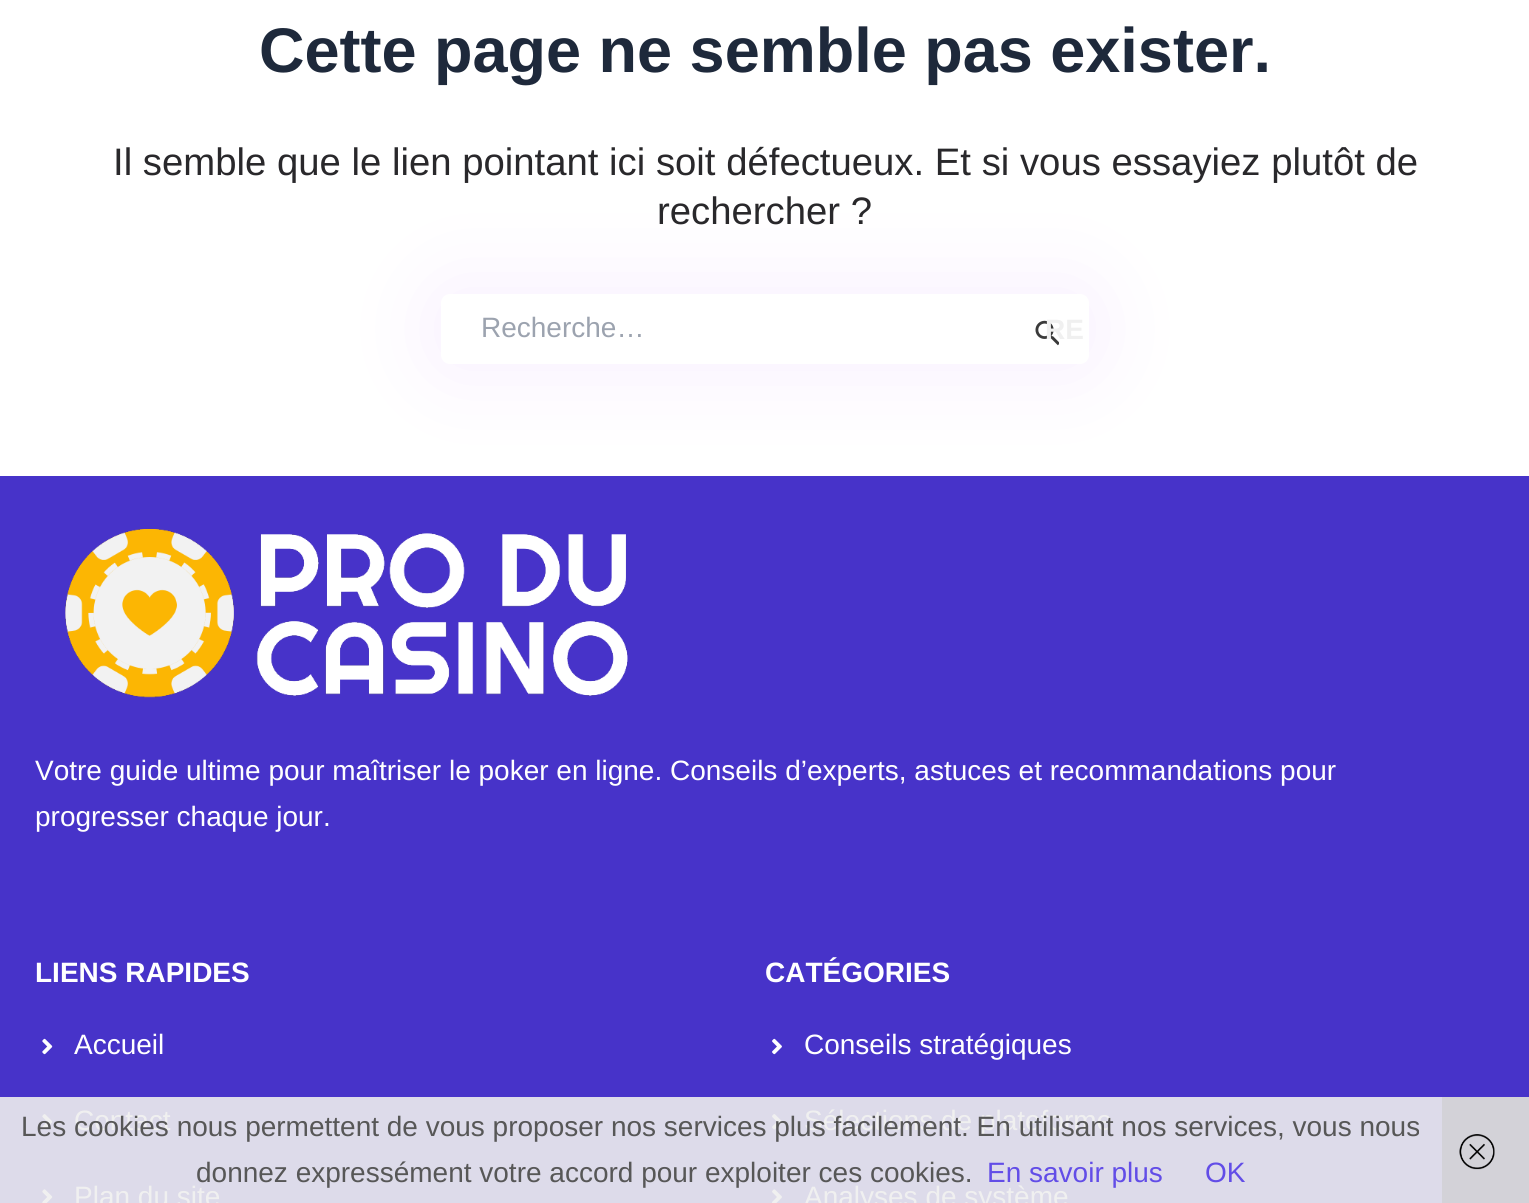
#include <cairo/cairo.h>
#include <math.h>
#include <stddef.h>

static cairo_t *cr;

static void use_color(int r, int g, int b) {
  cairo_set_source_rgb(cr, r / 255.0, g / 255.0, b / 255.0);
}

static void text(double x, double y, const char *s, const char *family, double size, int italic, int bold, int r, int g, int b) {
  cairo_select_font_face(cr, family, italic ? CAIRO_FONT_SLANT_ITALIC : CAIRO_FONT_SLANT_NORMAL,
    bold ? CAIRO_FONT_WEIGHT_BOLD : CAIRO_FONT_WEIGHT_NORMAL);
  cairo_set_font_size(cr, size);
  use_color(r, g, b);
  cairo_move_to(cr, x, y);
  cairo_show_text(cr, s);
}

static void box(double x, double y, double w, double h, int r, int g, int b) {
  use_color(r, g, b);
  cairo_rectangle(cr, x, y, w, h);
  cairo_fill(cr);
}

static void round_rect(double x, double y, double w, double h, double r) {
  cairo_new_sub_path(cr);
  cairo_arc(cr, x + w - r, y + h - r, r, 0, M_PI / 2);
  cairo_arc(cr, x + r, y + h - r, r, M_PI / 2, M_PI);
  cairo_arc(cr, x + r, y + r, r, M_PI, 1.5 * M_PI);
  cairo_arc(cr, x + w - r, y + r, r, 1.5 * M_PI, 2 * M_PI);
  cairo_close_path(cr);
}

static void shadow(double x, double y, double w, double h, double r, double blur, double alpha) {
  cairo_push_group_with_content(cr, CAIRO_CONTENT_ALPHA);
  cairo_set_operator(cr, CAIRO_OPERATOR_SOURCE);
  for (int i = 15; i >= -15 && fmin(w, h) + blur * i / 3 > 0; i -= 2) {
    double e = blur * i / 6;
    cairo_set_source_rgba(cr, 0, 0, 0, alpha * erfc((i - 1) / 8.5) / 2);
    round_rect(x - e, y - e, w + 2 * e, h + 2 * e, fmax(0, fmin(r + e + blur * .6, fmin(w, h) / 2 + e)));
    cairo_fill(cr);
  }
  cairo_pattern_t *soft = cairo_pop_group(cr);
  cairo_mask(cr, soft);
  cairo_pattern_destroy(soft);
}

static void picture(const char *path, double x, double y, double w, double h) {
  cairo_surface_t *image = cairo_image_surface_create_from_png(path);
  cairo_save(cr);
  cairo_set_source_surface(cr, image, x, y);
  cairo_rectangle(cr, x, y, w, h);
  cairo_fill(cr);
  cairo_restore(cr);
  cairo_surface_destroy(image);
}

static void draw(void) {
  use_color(255, 255, 255);
  cairo_paint(cr);
  use_color(247, 237, 255);
  shadow(441, 294, 648, 70, 9, 44, 1);
  use_color(255, 255, 255);
  round_rect(441, 294, 648, 70, 9);
  cairo_fill(cr);
  picture("img_01.png", 1035, 320, 24, 26);
  box(0, 476, 1529, 621, 71, 51, 201);
  box(0, 1097, 1442, 106, 221, 219, 234);
  picture("img_02.png", 65, 528, 563, 170);
  picture("img_03.png", 42, 1038, 11, 17);
  picture("img_04.png", 42, 1114, 11, 16);
  picture("img_05.png", 42, 1189, 11, 14);
  picture("img_06.png", 772, 1038, 10, 17);
  picture("img_07.png", 772, 1114, 10, 16);
  picture("img_08.png", 772, 1189, 10, 14);
  box(1442, 1097, 87, 106, 211, 210, 216);
  picture("img_09.png", 1459, 1134, 36, 36);
  text(259, 72, "Cette page ne semble pas exister.", "Liberation Sans", 63, 0, 1, 30, 41, 59);
  text(113, 175, "Il semble que le lien pointant ici soit défectueux. Et si vous essayiez plutôt de", "Liberation Sans", 38.3, 0, 0, 41, 40, 43);
  text(657, 224, "rechercher ?", "Liberation Sans", 38.3, 0, 0, 41, 40, 43);
  text(481, 337, "Recherche…", "Liberation Sans", 28, 0, 0, 156, 163, 175);
  text(1045, 339, "RE", "Liberation Sans", 28, 0, 1, 240, 240, 240);
  text(35, 780, "Votre guide ultime pour maîtriser le poker en ligne. Conseils d’experts, astuces et recommandations pour", "Liberation Sans", 28, 0, 0, 255, 255, 255);
  text(35, 826, "progresser chaque jour.", "Liberation Sans", 28, 0, 0, 255, 255, 255);
  text(35, 982, "LIENS RAPIDES", "Liberation Sans", 28, 0, 1, 255, 255, 255);
  text(74, 1054, "Accueil", "Liberation Sans", 28, 0, 0, 255, 255, 255);
  text(74, 1130, "Contact", "Liberation Sans", 28, 0, 0, 240, 240, 240);
  text(74, 1206, "Plan du site", "Liberation Sans", 28, 0, 0, 240, 240, 240);
  text(765, 982, "CATÉGORIES", "Liberation Sans", 28, 0, 1, 255, 255, 255);
  text(804, 1054, "Conseils stratégiques", "Liberation Sans", 28, 0, 0, 255, 255, 255);
  text(804, 1130, "Sélections de plateforme", "Liberation Sans", 28, 0, 0, 240, 240, 240);
  text(804, 1206, "Analyses de système", "Liberation Sans", 28, 0, 0, 240, 240, 240);
  text(21, 1136, "Les cookies nous permettent de vous proposer nos services plus facilement. En utilisant nos services, vous nous", "Liberation Sans", 28, 0, 0, 87, 87, 87);
  text(196, 1182, "donnez expressément votre accord pour exploiter ces cookies.", "Liberation Sans", 28, 0, 0, 87, 87, 87);
  text(987, 1182, "En savoir plus", "Liberation Sans", 28, 0, 0, 98, 77, 231);
  text(1205, 1182, "OK", "Liberation Sans", 28, 0, 0, 98, 77, 231);
}

int main(void) {
  cairo_surface_t *surface = cairo_image_surface_create(CAIRO_FORMAT_RGB24, 1529, 1203);
  cr = cairo_create(surface);
  cairo_font_options_t *options = cairo_font_options_create();
  cairo_font_options_set_hint_metrics(options, CAIRO_HINT_METRICS_OFF);
  cairo_font_options_set_hint_style(options, CAIRO_HINT_STYLE_NONE);
  cairo_set_font_options(cr, options);
  cairo_set_miter_limit(cr, 4);
  draw();
  cairo_surface_write_to_png(surface, "out.png");
  cairo_font_options_destroy(options);
  cairo_destroy(cr);
  cairo_surface_destroy(surface);
  return 0;
}
